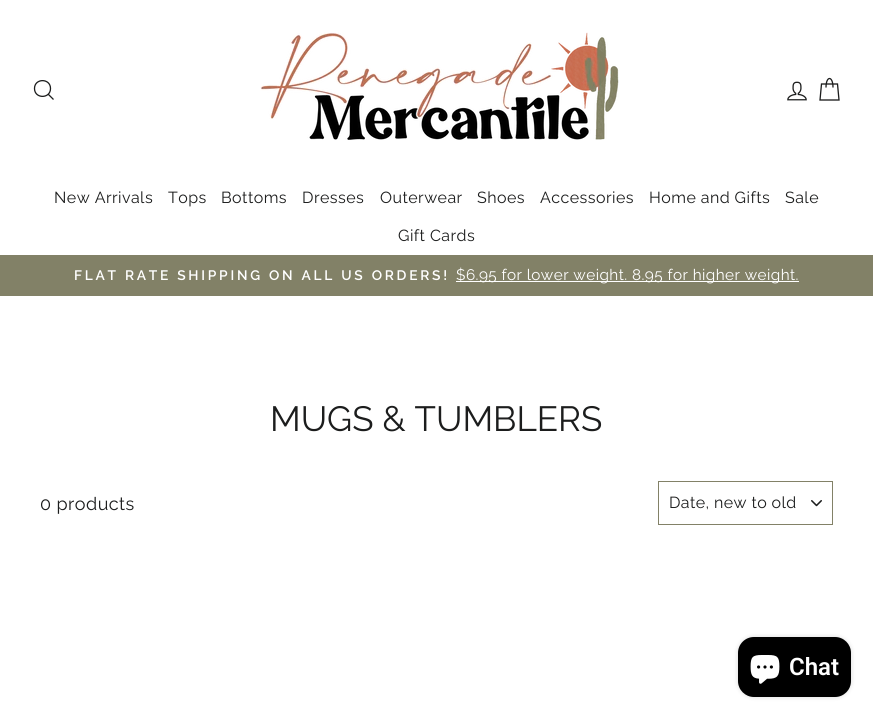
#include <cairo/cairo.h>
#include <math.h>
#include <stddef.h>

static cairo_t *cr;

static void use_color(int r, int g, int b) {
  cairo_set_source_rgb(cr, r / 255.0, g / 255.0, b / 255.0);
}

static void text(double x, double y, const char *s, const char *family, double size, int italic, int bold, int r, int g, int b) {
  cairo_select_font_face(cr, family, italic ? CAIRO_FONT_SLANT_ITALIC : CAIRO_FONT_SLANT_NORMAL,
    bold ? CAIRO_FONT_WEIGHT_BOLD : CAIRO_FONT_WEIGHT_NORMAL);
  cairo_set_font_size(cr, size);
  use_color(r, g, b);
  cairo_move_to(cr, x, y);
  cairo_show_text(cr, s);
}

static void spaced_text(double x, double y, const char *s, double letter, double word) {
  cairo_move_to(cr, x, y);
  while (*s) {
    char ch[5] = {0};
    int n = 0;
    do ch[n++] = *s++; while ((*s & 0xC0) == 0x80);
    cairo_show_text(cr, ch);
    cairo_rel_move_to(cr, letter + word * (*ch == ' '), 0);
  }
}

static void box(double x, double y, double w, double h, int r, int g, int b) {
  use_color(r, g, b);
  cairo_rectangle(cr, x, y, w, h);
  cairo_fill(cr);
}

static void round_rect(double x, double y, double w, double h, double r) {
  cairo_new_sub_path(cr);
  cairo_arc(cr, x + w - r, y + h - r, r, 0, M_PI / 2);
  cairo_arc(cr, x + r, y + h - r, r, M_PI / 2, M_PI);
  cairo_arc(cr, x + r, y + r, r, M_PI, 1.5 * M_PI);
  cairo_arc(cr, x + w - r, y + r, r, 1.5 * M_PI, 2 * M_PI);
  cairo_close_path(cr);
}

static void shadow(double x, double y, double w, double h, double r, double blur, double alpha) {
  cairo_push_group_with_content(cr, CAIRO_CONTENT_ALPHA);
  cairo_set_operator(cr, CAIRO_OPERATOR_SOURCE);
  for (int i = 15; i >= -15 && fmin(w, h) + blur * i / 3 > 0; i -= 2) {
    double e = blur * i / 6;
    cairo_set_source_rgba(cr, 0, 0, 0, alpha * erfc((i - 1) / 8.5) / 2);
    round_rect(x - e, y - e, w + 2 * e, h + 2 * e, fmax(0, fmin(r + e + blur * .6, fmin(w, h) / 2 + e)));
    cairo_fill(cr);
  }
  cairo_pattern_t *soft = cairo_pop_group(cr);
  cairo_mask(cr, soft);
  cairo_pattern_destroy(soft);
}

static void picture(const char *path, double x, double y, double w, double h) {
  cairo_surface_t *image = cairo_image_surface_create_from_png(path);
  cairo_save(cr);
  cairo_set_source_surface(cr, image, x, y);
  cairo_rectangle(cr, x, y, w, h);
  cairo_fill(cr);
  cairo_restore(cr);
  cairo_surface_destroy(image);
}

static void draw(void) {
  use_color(255, 255, 255);
  cairo_paint(cr);
  cairo_new_path(cr);
  cairo_move_to(cr, 50.5, 88.5);
  cairo_curve_to(cr, 50.5, 99, 34.5, 99, 34.5, 88.5);
  cairo_curve_to(cr, 34.5, 78, 50.5, 78, 50.5, 88.5);
  cairo_close_path(cr);
  cairo_move_to(cr, 53.5, 99.5);
  cairo_line_to(cr, 48.5, 94.5);
  use_color(28, 29, 29);
  cairo_set_line_width(cr, 1.3);
  cairo_stroke(cr);
  picture("img_01.png", 260, 32, 359, 108);
  picture("img_02.png", 787, 81, 20, 20);
  cairo_new_path(cr);
  cairo_move_to(cr, 826, 87.5);
  cairo_curve_to(cr, 826, 75.5, 833, 75.5, 833, 87.5);
  cairo_move_to(cr, 821.5, 84);
  cairo_line_to(cr, 837.5, 84);
  cairo_line_to(cr, 839, 100);
  cairo_line_to(cr, 820, 100);
  cairo_close_path(cr);
  cairo_stroke(cr);
  box(0, 255, 873, 41, 130, 129, 103);
  box(456, 281, 343, 1, 255, 255, 255);
  picture("img_03.png", 811, 500, 11, 7);
  cairo_rectangle(cr, 658.5, 481.5, 174, 43);
  use_color(130, 129, 103);
  cairo_set_line_width(cr, 1);
  cairo_stroke(cr);
  use_color(0, 0, 0);
  shadow(738, 637, 113, 60, 16, 2.5, 0.15);
  use_color(0, 0, 0);
  round_rect(738, 637, 113, 60, 16);
  cairo_fill(cr);
  picture("img_04.png", 750, 655, 30, 29);
  cairo_select_font_face(cr, "Raleway", CAIRO_FONT_SLANT_NORMAL, CAIRO_FONT_WEIGHT_NORMAL);
  cairo_set_font_size(cr, 16);
  use_color(28, 29, 29);
  spaced_text(54, 203, "New Arrivals", 0.45, 0);
  spaced_text(168, 203, "Tops", 0.45, 0);
  spaced_text(221, 203, "Bottoms", 0.45, 0);
  spaced_text(302, 203, "Dresses", 0.45, 0);
  spaced_text(380, 203, "Outerwear", 0.45, 0);
  spaced_text(477, 203, "Shoes", 0.45, 0);
  spaced_text(540, 203, "Accessories", 0.45, 0);
  spaced_text(649, 203, "Home and Gifts", 0.45, 0);
  spaced_text(785, 203, "Sale", 0.45, 0);
  spaced_text(398, 241, "Gift Cards", 0.45, 0);
  cairo_select_font_face(cr, "Raleway SemiBold", CAIRO_FONT_SLANT_NORMAL, CAIRO_FONT_WEIGHT_NORMAL);
  cairo_set_font_size(cr, 13.75);
  use_color(255, 255, 255);
  spaced_text(74, 280, "FLAT RATE SHIPPING ON ALL US ORDERS!", 2.75, 0);
  cairo_select_font_face(cr, "Raleway", CAIRO_FONT_SLANT_NORMAL, CAIRO_FONT_WEIGHT_NORMAL);
  cairo_set_font_size(cr, 15.3);
  spaced_text(456, 280, "$6.95 for lower weight. 8.95 for higher weight.", 0.45, 0);
  text(270, 431, "MUGS & TUMBLERS", "Raleway", 35, 0, 0, 28, 29, 29);
  cairo_set_font_size(cr, 18);
  spaced_text(40, 510, "0 products", 0.45, 0);
  cairo_set_font_size(cr, 16);
  spaced_text(669, 508, "Date, new to old", 0.4, 0);
  text(789, 675, "Chat", "Roboto SemiBold", 24, 0, 0, 255, 255, 255);
}

int main(void) {
  cairo_surface_t *surface = cairo_image_surface_create(CAIRO_FORMAT_RGB24, 873, 718);
  cr = cairo_create(surface);
  cairo_font_options_t *options = cairo_font_options_create();
  cairo_font_options_set_hint_metrics(options, CAIRO_HINT_METRICS_OFF);
  cairo_font_options_set_hint_style(options, CAIRO_HINT_STYLE_NONE);
  cairo_set_font_options(cr, options);
  cairo_set_miter_limit(cr, 4);
  draw();
  cairo_surface_write_to_png(surface, "out.png");
  cairo_font_options_destroy(options);
  cairo_destroy(cr);
  cairo_surface_destroy(surface);
  return 0;
}
